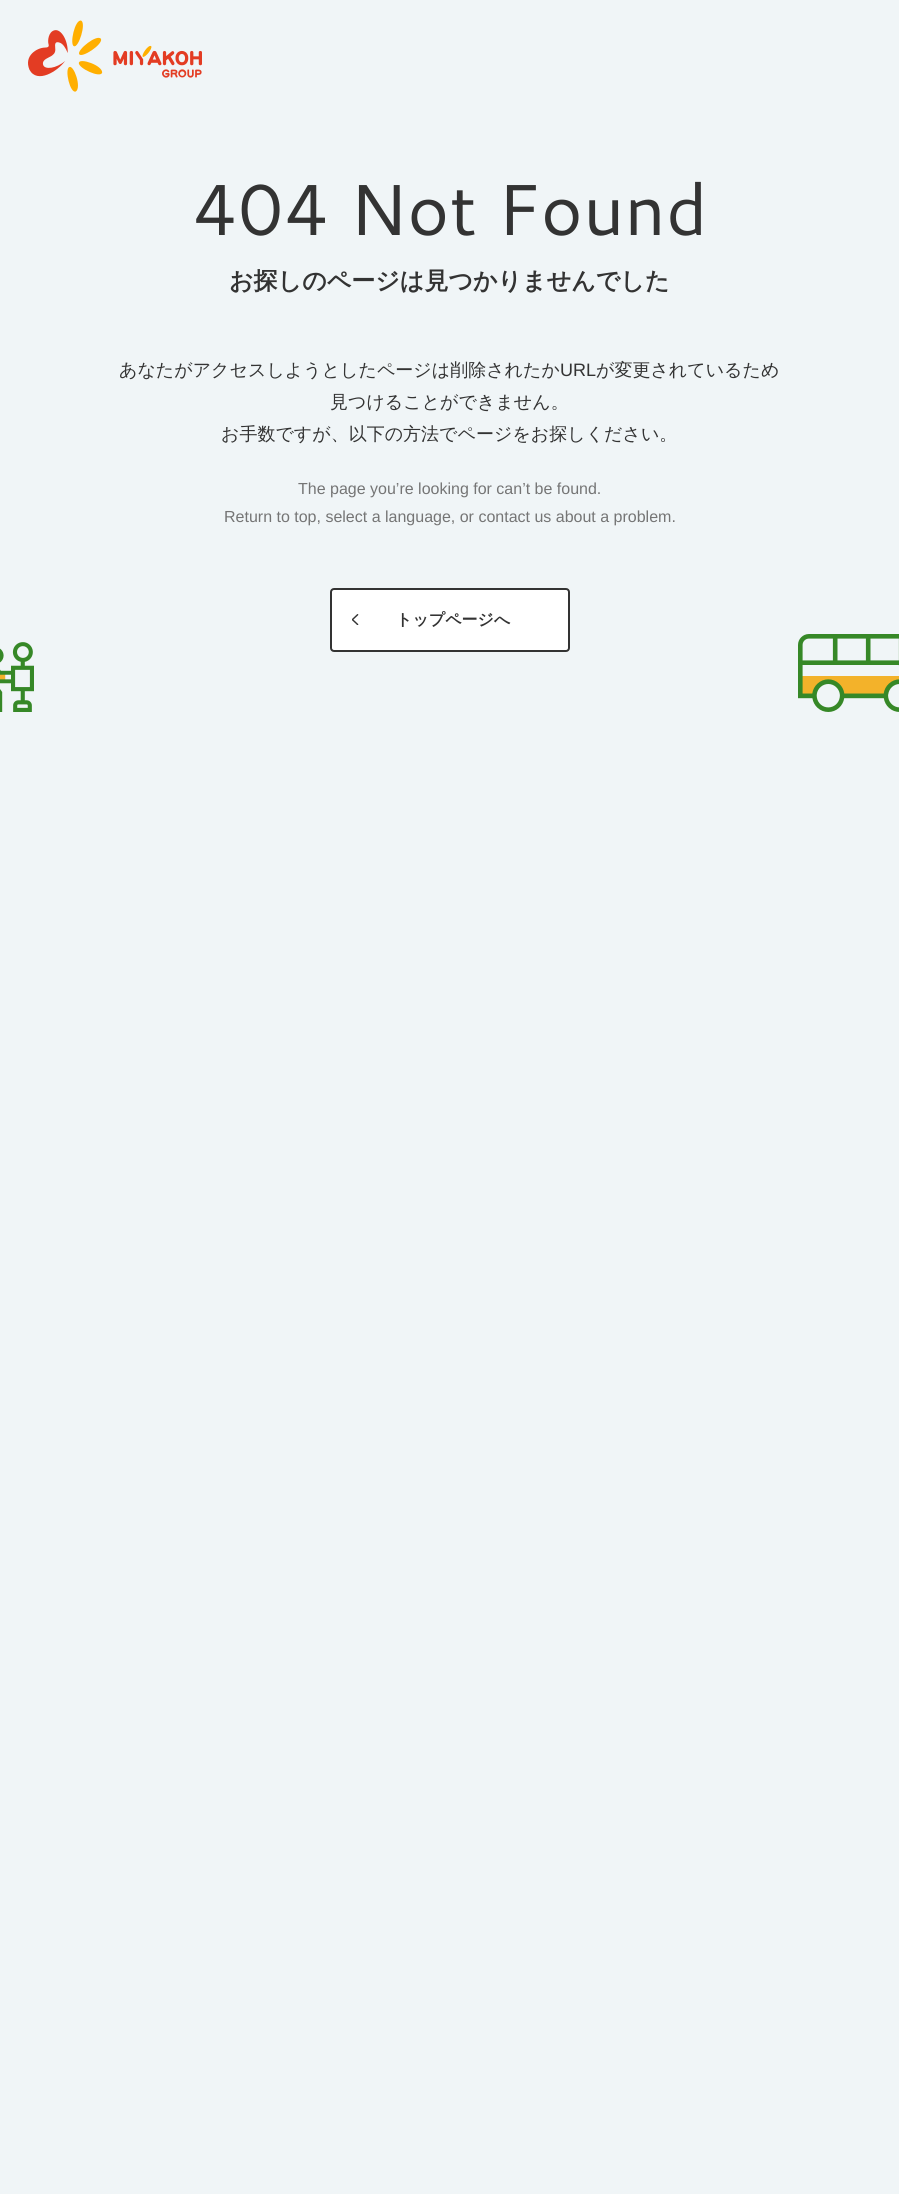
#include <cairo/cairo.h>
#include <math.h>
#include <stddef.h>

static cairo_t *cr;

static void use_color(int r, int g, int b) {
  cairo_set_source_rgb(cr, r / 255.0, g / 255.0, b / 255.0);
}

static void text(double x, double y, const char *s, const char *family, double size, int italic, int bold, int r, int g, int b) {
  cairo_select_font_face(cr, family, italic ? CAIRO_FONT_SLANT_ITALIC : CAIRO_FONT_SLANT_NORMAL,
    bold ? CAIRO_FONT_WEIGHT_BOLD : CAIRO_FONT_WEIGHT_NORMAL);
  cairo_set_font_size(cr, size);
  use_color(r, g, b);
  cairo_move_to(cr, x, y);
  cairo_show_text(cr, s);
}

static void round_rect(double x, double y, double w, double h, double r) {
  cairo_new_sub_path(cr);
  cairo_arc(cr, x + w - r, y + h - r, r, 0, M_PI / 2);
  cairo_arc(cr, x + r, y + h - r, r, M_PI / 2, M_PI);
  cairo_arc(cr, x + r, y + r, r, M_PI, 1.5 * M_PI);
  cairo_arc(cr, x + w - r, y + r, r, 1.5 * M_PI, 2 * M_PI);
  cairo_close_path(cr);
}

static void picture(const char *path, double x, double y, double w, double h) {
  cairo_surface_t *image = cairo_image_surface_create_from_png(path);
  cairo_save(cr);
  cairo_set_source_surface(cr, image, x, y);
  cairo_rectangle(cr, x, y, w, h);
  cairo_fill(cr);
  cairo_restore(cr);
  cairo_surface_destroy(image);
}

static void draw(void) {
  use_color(240, 245, 247);
  cairo_paint(cr);
  picture("img_01.png", 28, 20, 174, 72);
  use_color(255, 255, 255);
  round_rect(331, 589, 238, 62, 3);
  cairo_fill_preserve(cr);
  use_color(51, 51, 51);
  cairo_stroke(cr);
  picture("img_02.png", 352, 614, 7, 11);
  picture("img_03.png", 0, 642, 34, 70);
  picture("img_04.png", 798, 634, 101, 78);
  text(192, 235, "404 Not Found", "Cantarell", 72, 0, 0, 51, 51, 51);
  text(229, 289, "お探しのページは見つかりませんでした", "WenQuanYi Zen Hei", 24, 0, 1, 51, 51, 51);
  text(119, 376, "あなたがアクセスしようとしたページは削除されたか", "WenQuanYi Zen Hei Medium", 18, 0, 0, 51, 51, 51);
  text(560, 376, "URL", "Liberation Sans", 18, 0, 0, 51, 51, 51);
  text(596, 376, "が変更されているため", "WenQuanYi Zen Hei Medium", 18, 0, 0, 51, 51, 51);
  text(330, 408, "見つけることができません。", "WenQuanYi Zen Hei Medium", 18, 0, 0, 51, 51, 51);
  text(221, 440, "お手数ですが、以下の方法でページをお探しください。", "WenQuanYi Zen Hei Medium", 18, 0, 0, 51, 51, 51);
  text(298, 494, "The page you’re looking for can’t be found.", "Liberation Sans", 16, 0, 0, 117, 117, 117);
  text(224, 522, "Return to top, select a language, or contact us about a problem.", "Liberation Sans", 16, 0, 0, 117, 117, 117);
  text(396, 625, "トップページへ", "WenQuanYi Zen Hei", 16, 0, 1, 51, 51, 51);
}

int main(void) {
  cairo_surface_t *surface = cairo_image_surface_create(CAIRO_FORMAT_RGB24, 899, 2194);
  cr = cairo_create(surface);
  cairo_font_options_t *options = cairo_font_options_create();
  cairo_font_options_set_hint_metrics(options, CAIRO_HINT_METRICS_OFF);
  cairo_font_options_set_hint_style(options, CAIRO_HINT_STYLE_NONE);
  cairo_set_font_options(cr, options);
  cairo_set_miter_limit(cr, 4);
  draw();
  cairo_surface_write_to_png(surface, "out.png");
  cairo_font_options_destroy(options);
  cairo_destroy(cr);
  cairo_surface_destroy(surface);
  return 0;
}
